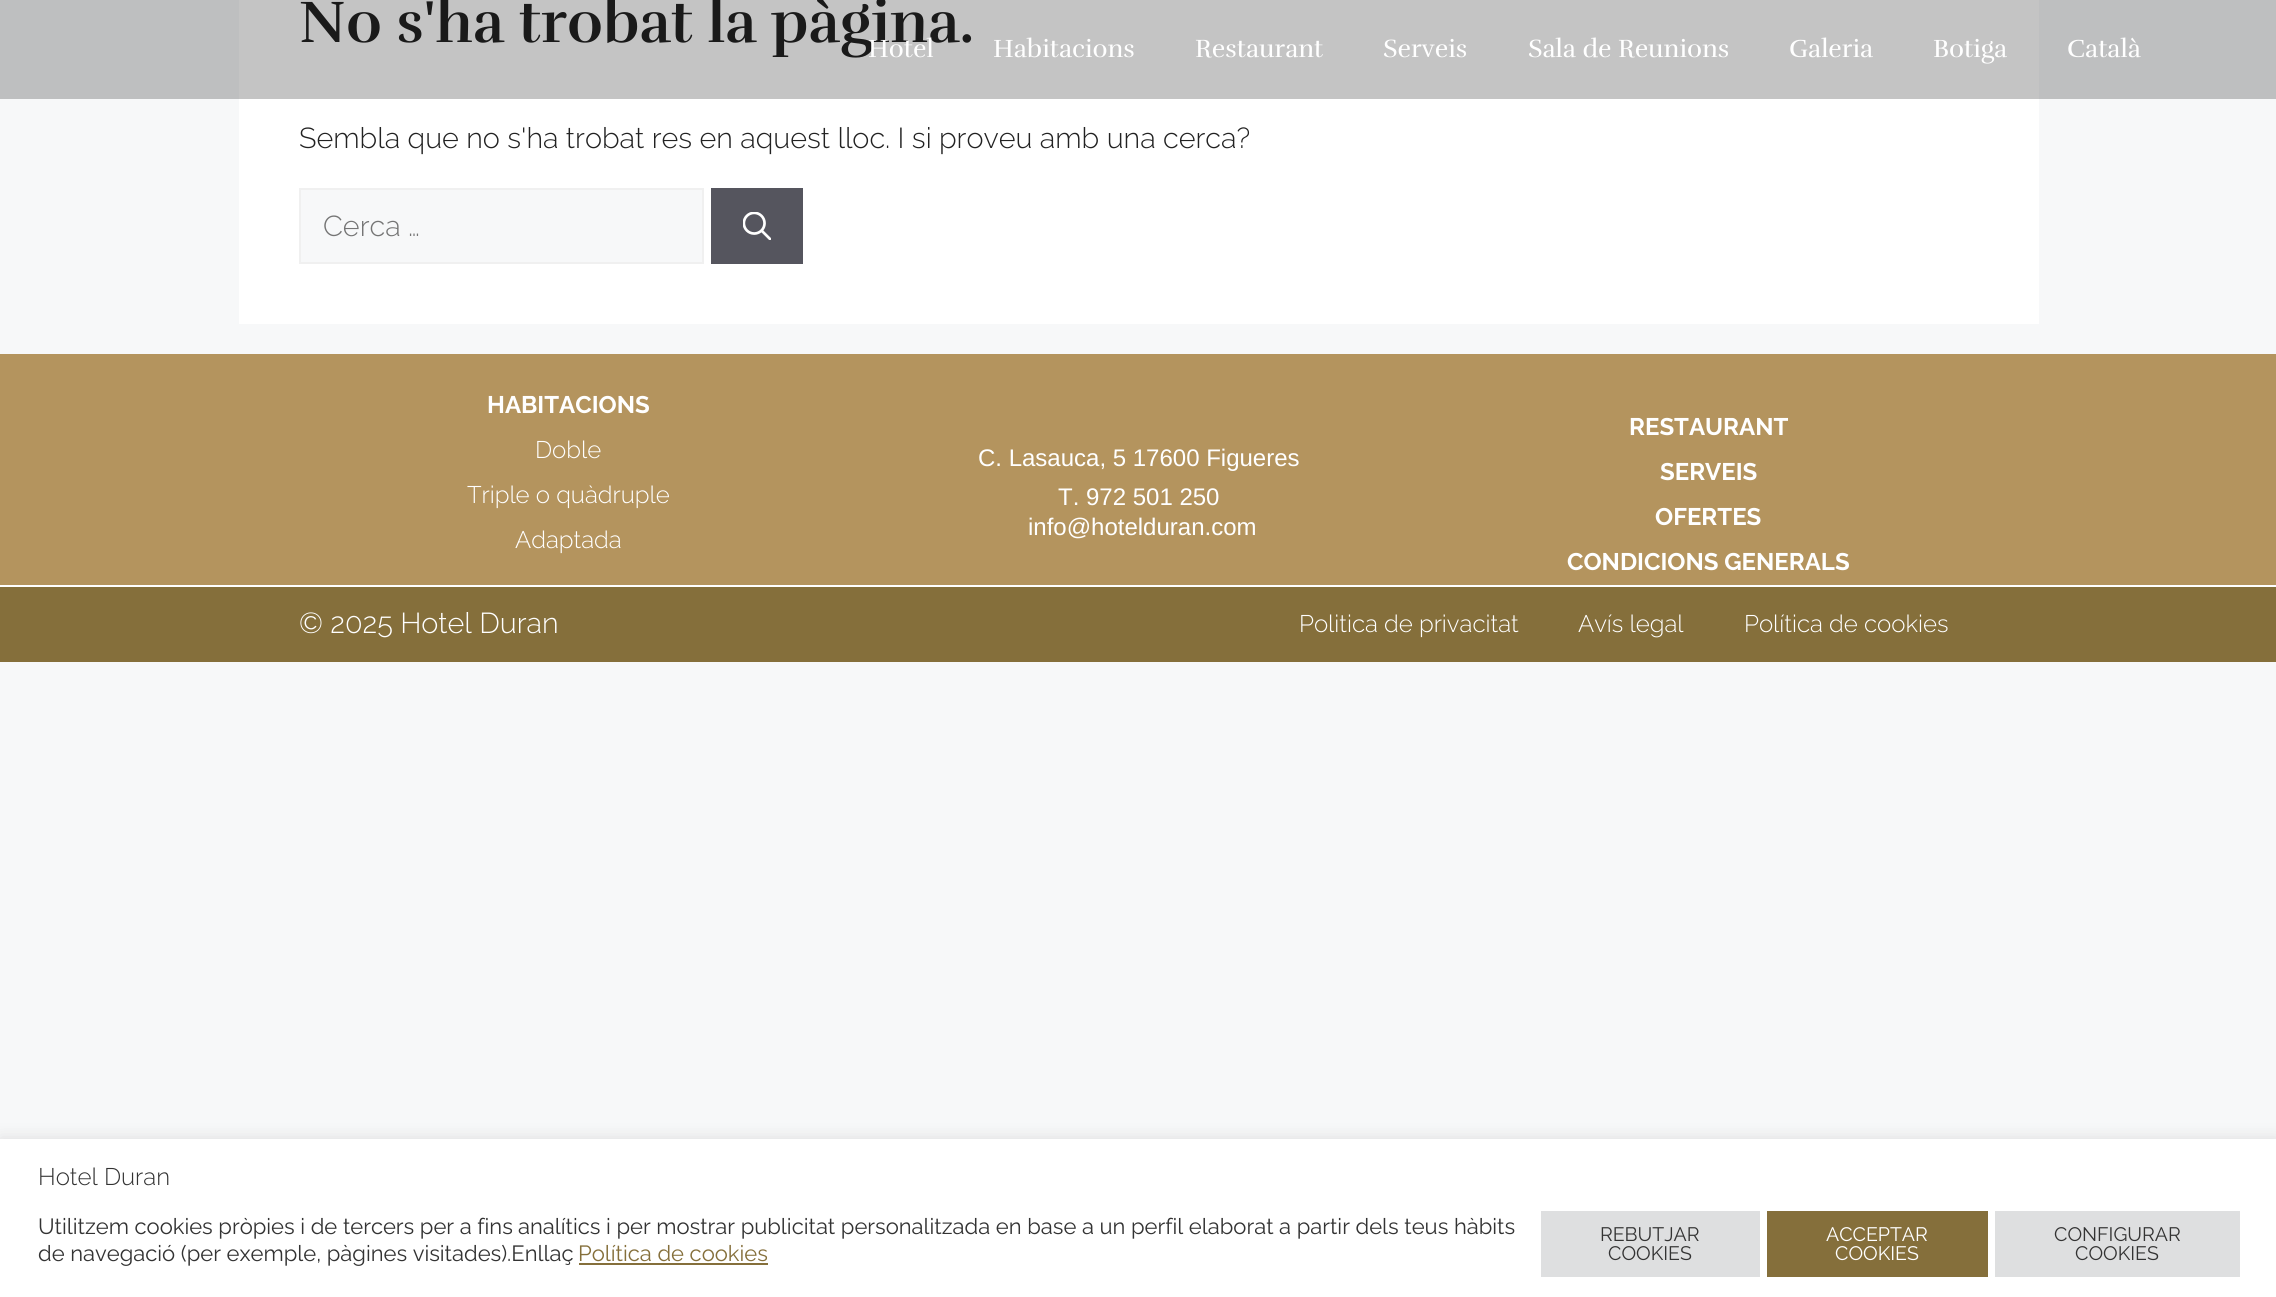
#include <cairo/cairo.h>
#include <math.h>
#include <stddef.h>

static cairo_t *cr;

static void use_color(int r, int g, int b) {
  cairo_set_source_rgb(cr, r / 255.0, g / 255.0, b / 255.0);
}

static void text(double x, double y, const char *s, const char *family, double size, int italic, int bold, int r, int g, int b) {
  cairo_select_font_face(cr, family, italic ? CAIRO_FONT_SLANT_ITALIC : CAIRO_FONT_SLANT_NORMAL,
    bold ? CAIRO_FONT_WEIGHT_BOLD : CAIRO_FONT_WEIGHT_NORMAL);
  cairo_set_font_size(cr, size);
  use_color(r, g, b);
  cairo_move_to(cr, x, y);
  cairo_show_text(cr, s);
}

static void box(double x, double y, double w, double h, int r, int g, int b) {
  use_color(r, g, b);
  cairo_rectangle(cr, x, y, w, h);
  cairo_fill(cr);
}

static void round_rect(double x, double y, double w, double h, double r) {
  cairo_new_sub_path(cr);
  cairo_arc(cr, x + w - r, y + h - r, r, 0, M_PI / 2);
  cairo_arc(cr, x + r, y + h - r, r, M_PI / 2, M_PI);
  cairo_arc(cr, x + r, y + r, r, M_PI, 1.5 * M_PI);
  cairo_arc(cr, x + w - r, y + r, r, 1.5 * M_PI, 2 * M_PI);
  cairo_close_path(cr);
}

static void shadow(double x, double y, double w, double h, double r, double blur, double alpha) {
  cairo_push_group_with_content(cr, CAIRO_CONTENT_ALPHA);
  cairo_set_operator(cr, CAIRO_OPERATOR_SOURCE);
  for (int i = 15; i >= -15 && fmin(w, h) + blur * i / 3 > 0; i -= 2) {
    double e = blur * i / 6;
    cairo_set_source_rgba(cr, 0, 0, 0, alpha * erfc((i - 1) / 8.5) / 2);
    round_rect(x - e, y - e, w + 2 * e, h + 2 * e, fmax(0, fmin(r + e + blur * .6, fmin(w, h) / 2 + e)));
    cairo_fill(cr);
  }
  cairo_pattern_t *soft = cairo_pop_group(cr);
  cairo_mask(cr, soft);
  cairo_pattern_destroy(soft);
}

static void picture(const char *path, double x, double y, double w, double h) {
  cairo_surface_t *image = cairo_image_surface_create_from_png(path);
  cairo_save(cr);
  cairo_set_source_surface(cr, image, x, y);
  cairo_rectangle(cr, x, y, w, h);
  cairo_fill(cr);
  cairo_restore(cr);
  cairo_surface_destroy(image);
}

static void draw(void) {
  use_color(247, 248, 249);
  cairo_paint(cr);
  box(0, 0, 2276, 99, 190, 191, 192);
  box(239, 99, 1800, 225, 255, 255, 255);
  box(239, 0, 1800, 99, 196, 196, 196);
  use_color(247, 248, 249);
  cairo_rectangle(cr, 300, 189, 403, 74);
  cairo_fill_preserve(cr);
  use_color(240, 240, 240);
  cairo_stroke(cr);
  box(711, 188, 92, 76, 85, 85, 94);
  picture("img_01.png", 743, 212, 28, 28);
  box(0, 354, 2276, 231, 180, 148, 94);
  box(0, 587, 2276, 75, 133, 111, 59);
  box(0, 585, 2276, 2, 255, 255, 255);
  use_color(172, 171, 171);
  shadow(0, 1137, 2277, 159, 0, 7.5, 0.3);
  box(0, 1139, 2276, 158, 255, 255, 255);
  box(579, 1263, 189, 2, 133, 111, 59);
  box(1541, 1211, 219, 66, 222, 223, 224);
  box(1767, 1211, 221, 66, 133, 111, 59);
  box(1995, 1211, 245, 66, 222, 223, 224);
  text(299, 42, "No s'ha trobat la pàgina.", "Rufina", 60, 0, 1, 26, 26, 26);
  text(299, 148, "Sembla que no s'ha trobat res en aquest lloc. I si proveu amb una cerca?", "Raleway Light", 28.8, 0, 0, 34, 34, 34);
  text(323, 236, "Cerca …", "Raleway Light", 28.8, 0, 0, 117, 117, 117);
  text(868, 57, "Hotel", "Rufina", 25.5, 0, 0, 255, 255, 255);
  text(993, 57, "Habitacions", "Rufina", 25.5, 0, 0, 255, 255, 255);
  text(1195, 57, "Restaurant", "Rufina", 25.5, 0, 0, 255, 255, 255);
  text(1383, 57, "Serveis", "Rufina", 25.5, 0, 0, 255, 255, 255);
  text(1528, 57, "Sala de Reunions", "Rufina", 25.5, 0, 0, 255, 255, 255);
  text(1789, 57, "Galeria", "Rufina", 25.5, 0, 0, 255, 255, 255);
  text(1933, 57, "Botiga", "Rufina", 25.5, 0, 0, 255, 255, 255);
  text(2067, 57, "Català", "Rufina", 25.5, 0, 0, 255, 255, 255);
  text(487, 413, "HABITACIONS", "Raleway", 24, 0, 1, 255, 255, 255);
  text(535, 458, "Doble", "Raleway Light", 24, 0, 0, 255, 255, 255);
  text(467, 503, "Triple o quàdruple", "Raleway Light", 24, 0, 0, 255, 255, 255);
  text(515, 548, "Adaptada", "Raleway Light", 24, 0, 0, 255, 255, 255);
  text(978, 466, "C. Lasauca, 5 17600 Figueres", "Liberation Sans", 24, 0, 0, 255, 255, 255);
  text(1058, 505, "T. 972 501 250", "Liberation Sans", 24, 0, 0, 255, 255, 255);
  text(1028, 535, "info@hotelduran.com", "Liberation Sans", 24, 0, 0, 255, 255, 255);
  text(1629, 435, "RESTAURANT", "Raleway", 24, 0, 1, 255, 255, 255);
  text(1660, 480, "SERVEIS", "Raleway", 24, 0, 1, 255, 255, 255);
  text(1655, 525, "OFERTES", "Raleway", 24, 0, 1, 255, 255, 255);
  text(1567, 570, "CONDICIONS GENERALS", "Raleway", 24, 0, 1, 255, 255, 255);
  text(299, 633, "© 2025 Hotel Duran", "Raleway Light", 28.8, 0, 0, 255, 255, 255);
  text(1299, 632, "Politica de privacitat", "Raleway Light", 24, 0, 0, 255, 255, 255);
  text(1578, 632, "Avís legal", "Raleway Light", 24, 0, 0, 255, 255, 255);
  text(1744, 632, "Política de cookies", "Raleway Light", 24, 0, 0, 255, 255, 255);
  text(38, 1185, "Hotel Duran", "Raleway Light", 24, 0, 0, 51, 51, 51);
  text(38, 1234, "Utilitzem cookies pròpies i de tercers per a fins", "Raleway", 22, 0, 0, 51, 51, 51);
  text(518, 1234, "analítics i per mostrar publicitat personalitzada en base a un perfil elaborat a partir dels teus hàbits", "Raleway", 22, 0, 0, 51, 51, 51);
  text(38, 1261, "de navegació (per exemple, pàgines visitades).Enllaç", "Raleway", 22, 0, 0, 51, 51, 51);
  text(578, 1261, "Política de cookies", "Raleway", 22, 0, 0, 133, 111, 59);
  text(1600, 1241, "REBUTJAR", "Raleway", 19.5, 0, 0, 51, 51, 51);
  text(1608, 1260, "COOKIES", "Raleway", 19.5, 0, 0, 51, 51, 51);
  text(1826, 1241, "ACCEPTAR", "Raleway", 19.5, 0, 0, 255, 255, 255);
  text(1835, 1260, "COOKIES", "Raleway", 19.5, 0, 0, 255, 255, 255);
  text(2054, 1241, "CONFIGURAR", "Raleway", 19.5, 0, 0, 51, 51, 51);
  text(2075, 1260, "COOKIES", "Raleway", 19.5, 0, 0, 51, 51, 51);
}

int main(void) {
  cairo_surface_t *surface = cairo_image_surface_create(CAIRO_FORMAT_RGB24, 2276, 1297);
  cr = cairo_create(surface);
  cairo_font_options_t *options = cairo_font_options_create();
  cairo_font_options_set_hint_metrics(options, CAIRO_HINT_METRICS_OFF);
  cairo_font_options_set_hint_style(options, CAIRO_HINT_STYLE_NONE);
  cairo_set_font_options(cr, options);
  cairo_set_miter_limit(cr, 4);
  draw();
  cairo_surface_write_to_png(surface, "out.png");
  cairo_font_options_destroy(options);
  cairo_destroy(cr);
  cairo_surface_destroy(surface);
  return 0;
}
